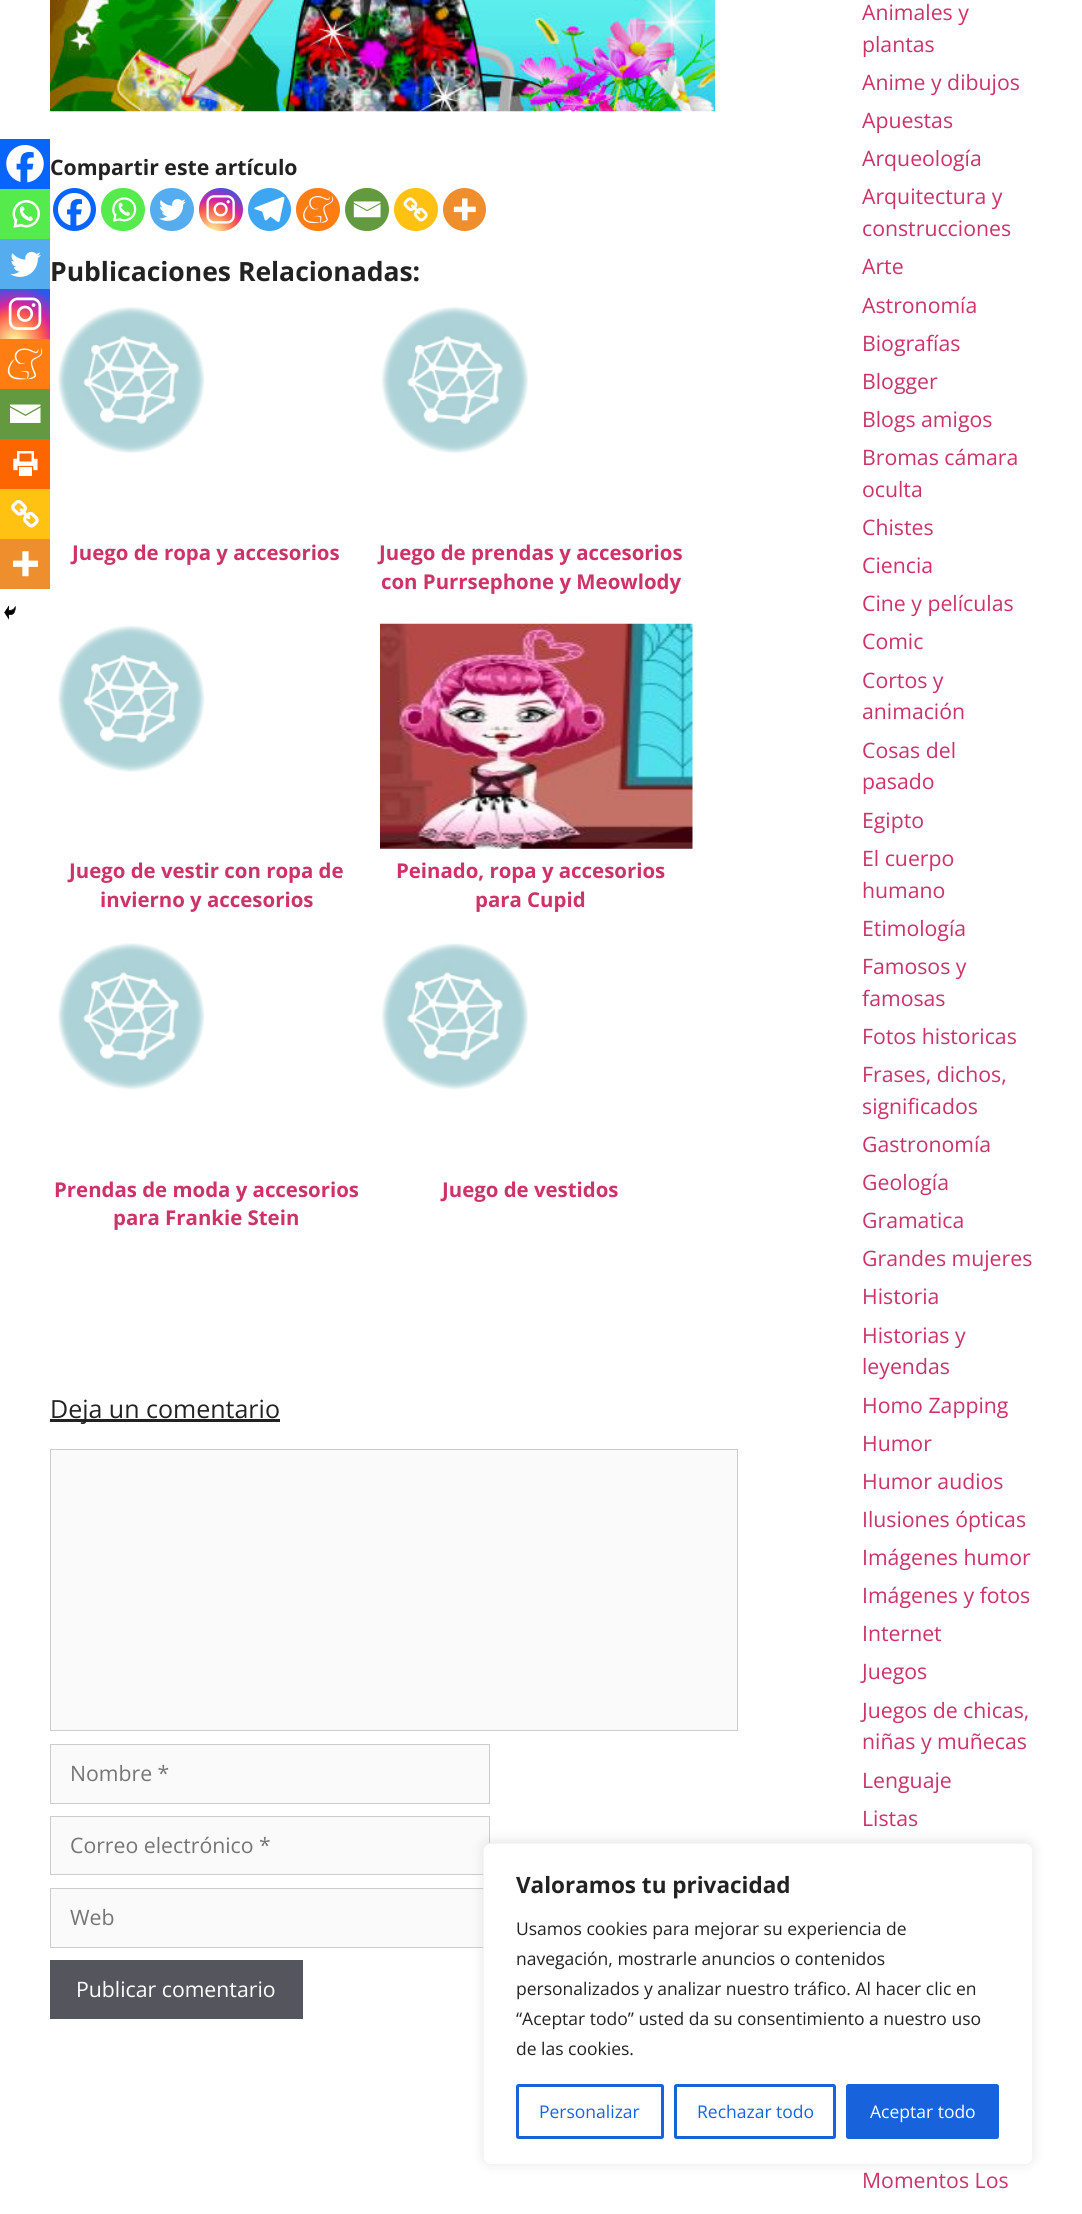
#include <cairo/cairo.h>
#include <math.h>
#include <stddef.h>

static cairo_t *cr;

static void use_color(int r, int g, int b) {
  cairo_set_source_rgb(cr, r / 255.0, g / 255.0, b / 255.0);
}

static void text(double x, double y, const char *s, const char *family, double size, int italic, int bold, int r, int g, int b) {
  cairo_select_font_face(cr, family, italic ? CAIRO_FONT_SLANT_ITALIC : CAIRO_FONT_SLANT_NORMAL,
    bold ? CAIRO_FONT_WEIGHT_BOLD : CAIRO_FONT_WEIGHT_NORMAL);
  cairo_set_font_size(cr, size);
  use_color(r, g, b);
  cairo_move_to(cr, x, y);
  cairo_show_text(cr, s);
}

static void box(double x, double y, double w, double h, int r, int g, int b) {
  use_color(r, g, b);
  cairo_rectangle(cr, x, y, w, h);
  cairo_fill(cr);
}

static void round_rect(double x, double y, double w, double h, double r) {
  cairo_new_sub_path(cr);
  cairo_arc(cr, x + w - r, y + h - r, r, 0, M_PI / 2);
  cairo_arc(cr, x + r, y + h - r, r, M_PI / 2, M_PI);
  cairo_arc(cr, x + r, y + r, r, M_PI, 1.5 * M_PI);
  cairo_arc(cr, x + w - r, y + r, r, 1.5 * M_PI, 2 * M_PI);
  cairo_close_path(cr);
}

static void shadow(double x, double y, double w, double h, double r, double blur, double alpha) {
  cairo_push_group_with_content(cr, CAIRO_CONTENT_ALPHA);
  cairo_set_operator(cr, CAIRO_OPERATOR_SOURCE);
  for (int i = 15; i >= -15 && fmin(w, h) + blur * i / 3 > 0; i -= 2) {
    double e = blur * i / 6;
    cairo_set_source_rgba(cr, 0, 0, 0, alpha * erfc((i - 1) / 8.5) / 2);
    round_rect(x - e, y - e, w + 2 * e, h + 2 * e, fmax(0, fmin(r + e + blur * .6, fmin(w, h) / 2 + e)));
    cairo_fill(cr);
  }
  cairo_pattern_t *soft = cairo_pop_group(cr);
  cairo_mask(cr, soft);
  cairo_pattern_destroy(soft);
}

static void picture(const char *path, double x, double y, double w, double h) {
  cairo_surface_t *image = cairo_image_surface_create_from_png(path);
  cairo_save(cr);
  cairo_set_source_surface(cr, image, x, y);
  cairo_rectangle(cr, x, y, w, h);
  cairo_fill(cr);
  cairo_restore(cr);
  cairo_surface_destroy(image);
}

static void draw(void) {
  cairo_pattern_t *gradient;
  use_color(255, 255, 255);
  cairo_paint(cr);
  picture("img_01.png", 50, 0, 665, 112);
  box(0, 139, 50, 50, 7, 101, 254);
  picture("img_02.png", 6, 145, 38, 38);
  box(0, 189, 50, 50, 85, 235, 76);
  picture("img_03.png", 12, 200, 28, 28);
  box(0, 239, 50, 50, 85, 172, 238);
  picture("img_04.png", 10, 251, 31, 26);
  gradient = cairo_pattern_create_radial(15, 342, 0, 15, 342, 64);
  cairo_pattern_add_color_stop_rgba(gradient, 0, 0.992, 0.957, 0.592, 1);
  cairo_pattern_add_color_stop_rgba(gradient, 0.05, 0.992, 0.957, 0.592, 1);
  cairo_pattern_add_color_stop_rgba(gradient, 0.45, 0.992, 0.349, 0.286, 1);
  cairo_pattern_add_color_stop_rgba(gradient, 0.6, 0.839, 0.141, 0.624, 1);
  cairo_pattern_add_color_stop_rgba(gradient, 0.9, 0.157, 0.353, 0.922, 1);
  cairo_set_source(cr, gradient);
  cairo_pattern_destroy(gradient);
  cairo_rectangle(cr, 0, 289, 50, 50);
  cairo_fill(cr);
  picture("img_05.png", 8, 297, 34, 33);
  box(0, 339, 50, 50, 255, 125, 18);
  picture("img_06.png", 7, 348, 36, 32);
  box(0, 389, 50, 50, 100, 154, 63);
  use_color(255, 255, 255);
  cairo_new_path(cr);
  cairo_move_to(cr, 8.5, 404.5);
  cairo_line_to(cr, 40.5, 404.5);
  cairo_line_to(cr, 40.5, 406);
  cairo_line_to(cr, 25.5, 414.5);
  cairo_line_to(cr, 10, 406);
  cairo_line_to(cr, 10, 404.5);
  cairo_move_to(cr, 10, 407.5);
  cairo_line_to(cr, 25.5, 416);
  cairo_line_to(cr, 40.5, 407.5);
  cairo_line_to(cr, 40.5, 423);
  cairo_line_to(cr, 10, 423);
  cairo_line_to(cr, 10, 407.5);
  cairo_fill(cr);
  box(0, 439, 50, 50, 253, 101, 0);
  picture("img_07.png", 13, 451, 25, 25);
  box(0, 489, 50, 50, 255, 193, 18);
  picture("img_08.png", 11, 500, 28, 28);
  box(0, 539, 50, 50, 238, 142, 45);
  picture("img_09.png", 12, 551, 26, 26);
  picture("img_10.png", 4, 605, 12, 15);
  use_color(7, 101, 254);
  cairo_arc(cr, 74.5, 209.5, 21.5, 0, 2 * M_PI);
  cairo_fill(cr);
  picture("img_11.png", 58, 193, 33, 33);
  use_color(85, 235, 76);
  round_rect(101, 188, 44, 43, 21.5);
  cairo_fill(cr);
  picture("img_12.png", 112, 197, 25, 25);
  use_color(85, 172, 238);
  round_rect(150, 188, 44, 43, 21.5);
  cairo_fill(cr);
  picture("img_13.png", 159, 199, 27, 22);
  gradient = cairo_pattern_create_radial(212, 234, 0, 212, 234, 56);
  cairo_pattern_add_color_stop_rgba(gradient, 0, 0.992, 0.957, 0.592, 1);
  cairo_pattern_add_color_stop_rgba(gradient, 0.05, 0.992, 0.957, 0.592, 1);
  cairo_pattern_add_color_stop_rgba(gradient, 0.45, 0.992, 0.349, 0.286, 1);
  cairo_pattern_add_color_stop_rgba(gradient, 0.6, 0.839, 0.141, 0.624, 1);
  cairo_pattern_add_color_stop_rgba(gradient, 0.9, 0.157, 0.353, 0.922, 1);
  cairo_set_source(cr, gradient);
  cairo_pattern_destroy(gradient);
  round_rect(199, 188, 44, 43, 21.5);
  cairo_fill(cr);
  picture("img_14.png", 206, 195, 29, 29);
  use_color(61, 165, 241);
  cairo_arc(cr, 269.5, 209.5, 21.5, 0, 2 * M_PI);
  cairo_fill(cr);
  picture("img_15.png", 254, 196, 31, 26);
  use_color(255, 125, 18);
  round_rect(296, 188, 44, 43, 21.5);
  cairo_fill(cr);
  picture("img_16.png", 303, 195, 31, 29);
  use_color(100, 154, 63);
  round_rect(345, 188, 44, 43, 21.5);
  cairo_fill(cr);
  picture("img_17.png", 353, 201, 28, 17);
  use_color(255, 193, 18);
  round_rect(394, 188, 44, 43, 21.5);
  cairo_fill(cr);
  picture("img_18.png", 403, 197, 25, 25);
  use_color(238, 142, 45);
  cairo_arc(cr, 464.5, 209.5, 21.5, 0, 2 * M_PI);
  cairo_fill(cr);
  picture("img_19.png", 453, 198, 23, 23);
  picture("img_20.png", 58, 307, 147, 146);
  picture("img_21.png", 381, 306, 147, 147);
  picture("img_22.png", 58, 625, 147, 147);
  picture("img_23.png", 380, 623, 313, 226);
  picture("img_24.png", 58, 943, 147, 147);
  picture("img_25.png", 381, 943, 147, 147);
  box(50, 1419, 230, 3, 34, 34, 34);
  use_color(250, 250, 250);
  cairo_rectangle(cr, 50.5, 1449.5, 687, 281);
  cairo_fill_preserve(cr);
  use_color(204, 204, 204);
  cairo_set_line_width(cr, 1);
  cairo_stroke(cr);
  use_color(250, 250, 250);
  cairo_rectangle(cr, 50.5, 1744.5, 439, 59);
  cairo_fill_preserve(cr);
  use_color(204, 204, 204);
  cairo_stroke(cr);
  use_color(250, 250, 250);
  cairo_rectangle(cr, 50.5, 1816.5, 439, 58);
  cairo_fill_preserve(cr);
  use_color(204, 204, 204);
  cairo_stroke(cr);
  box(51, 1889, 432, 58, 250, 250, 250);
  cairo_rectangle(cr, 50.5, 1888.5, 439, 59);
  use_color(204, 204, 204);
  cairo_stroke(cr);
  box(50, 1960, 253, 59, 85, 85, 94);
  use_color(172, 171, 171);
  shadow(483, 1841, 550, 323, 8, 6, 0.3);
  use_color(255, 255, 255);
  round_rect(483.5, 1843.5, 549, 321, 7.5);
  cairo_fill_preserve(cr);
  use_color(244, 244, 244);
  cairo_stroke(cr);
  round_rect(517.5, 2085.5, 145, 52, 1);
  use_color(24, 99, 220);
  cairo_set_line_width(cr, 3);
  cairo_stroke(cr);
  round_rect(675.5, 2085.5, 159, 52, 1);
  cairo_stroke(cr);
  round_rect(847.5, 2085.5, 150, 52, 1);
  cairo_fill_preserve(cr);
  cairo_stroke(cr);
  text(50, 175, "Compartir este artículo", "Open Sans", 21.25, 0, 1, 34, 34, 34);
  text(50, 281, "Publicaciones Relacionadas:", "Open Sans", 26.5, 0, 1, 34, 34, 34);
  text(72, 560, "Juego de ropa y accesorios", "Open Sans", 20.4, 0, 1, 204, 51, 102);
  text(379, 560, "Juego de prendas y accesorios", "Open Sans", 20.4, 0, 1, 204, 51, 102);
  text(381, 589, "con Purrsephone y Meowlody", "Open Sans", 20.4, 0, 1, 204, 51, 102);
  text(69, 878, "Juego de vestir con ropa de", "Open Sans", 20.4, 0, 1, 204, 51, 102);
  text(100, 907, "invierno y accesorios", "Open Sans", 20.4, 0, 1, 204, 51, 102);
  text(396, 878, "Peinado, ropa y accesorios", "Open Sans", 20.4, 0, 1, 204, 51, 102);
  text(475, 907, "para Cupid", "Open Sans", 20.4, 0, 1, 204, 51, 102);
  text(54, 1197, "Prendas de moda y accesorios", "Open Sans", 20.4, 0, 1, 204, 51, 102);
  text(113, 1225, "para Frankie Stein", "Open Sans", 20.4, 0, 1, 204, 51, 102);
  text(442, 1197, "Juego de vestidos", "Open Sans", 20.4, 0, 1, 204, 51, 102);
  text(50, 1418, "Deja un comentario", "Open Sans", 25, 0, 0, 34, 34, 34);
  text(70, 1781, "Nombre *", "Open Sans", 21.25, 0, 0, 117, 117, 117);
  text(70, 1853, "Correo electrónico *", "Open Sans", 21.25, 0, 0, 117, 117, 117);
  text(70, 1925, "Web", "Open Sans", 21.25, 0, 0, 117, 117, 117);
  text(76, 1997, "Publicar comentario", "Open Sans", 21.25, 0, 0, 255, 255, 255);
  text(862, 20, "Animales y", "Open Sans", 21.25, 0, 0, 204, 51, 102);
  text(862, 52, "plantas", "Open Sans", 21.25, 0, 0, 204, 51, 102);
  text(862, 90, "Anime y dibujos", "Open Sans", 21.25, 0, 0, 204, 51, 102);
  text(862, 128, "Apuestas", "Open Sans", 21.25, 0, 0, 204, 51, 102);
  text(862, 166, "Arqueología", "Open Sans", 21.25, 0, 0, 204, 51, 102);
  text(862, 204, "Arquitectura y", "Open Sans", 21.25, 0, 0, 204, 51, 102);
  text(862, 236, "construcciones", "Open Sans", 21.25, 0, 0, 204, 51, 102);
  text(862, 274, "Arte", "Open Sans", 21.25, 0, 0, 204, 51, 102);
  text(862, 313, "Astronomía", "Open Sans", 21.25, 0, 0, 204, 51, 102);
  text(862, 351, "Biografías", "Open Sans", 21.25, 0, 0, 204, 51, 102);
  text(862, 389, "Blogger", "Open Sans", 21.25, 0, 0, 204, 51, 102);
  text(862, 427, "Blogs amigos", "Open Sans", 21.25, 0, 0, 204, 51, 102);
  text(862, 465, "Bromas cámara", "Open Sans", 21.25, 0, 0, 204, 51, 102);
  text(862, 497, "oculta", "Open Sans", 21.25, 0, 0, 204, 51, 102);
  text(862, 535, "Chistes", "Open Sans", 21.25, 0, 0, 204, 51, 102);
  text(862, 573, "Ciencia", "Open Sans", 21.25, 0, 0, 204, 51, 102);
  text(862, 611, "Cine y películas", "Open Sans", 21.25, 0, 0, 204, 51, 102);
  text(862, 649, "Comic", "Open Sans", 21.25, 0, 0, 204, 51, 102);
  text(862, 688, "Cortos y", "Open Sans", 21.25, 0, 0, 204, 51, 102);
  text(862, 719, "animación", "Open Sans", 21.25, 0, 0, 204, 51, 102);
  text(862, 758, "Cosas del", "Open Sans", 21.25, 0, 0, 204, 51, 102);
  text(862, 789, "pasado", "Open Sans", 21.25, 0, 0, 204, 51, 102);
  text(862, 828, "Egipto", "Open Sans", 21.25, 0, 0, 204, 51, 102);
  text(862, 866, "El cuerpo", "Open Sans", 21.25, 0, 0, 204, 51, 102);
  text(862, 898, "humano", "Open Sans", 21.25, 0, 0, 204, 51, 102);
  text(862, 936, "Etimología", "Open Sans", 21.25, 0, 0, 204, 51, 102);
  text(862, 974, "Famosos y", "Open Sans", 21.25, 0, 0, 204, 51, 102);
  text(862, 1006, "famosas", "Open Sans", 21.25, 0, 0, 204, 51, 102);
  text(862, 1044, "Fotos historicas", "Open Sans", 21.25, 0, 0, 204, 51, 102);
  text(862, 1082, "Frases, dichos,", "Open Sans", 21.25, 0, 0, 204, 51, 102);
  text(862, 1114, "significados", "Open Sans", 21.25, 0, 0, 204, 51, 102);
  text(862, 1152, "Gastronomía", "Open Sans", 21.25, 0, 0, 204, 51, 102);
  text(862, 1190, "Geología", "Open Sans", 21.25, 0, 0, 204, 51, 102);
  text(862, 1228, "Gramatica", "Open Sans", 21.25, 0, 0, 204, 51, 102);
  text(862, 1266, "Grandes mujeres", "Open Sans", 21.25, 0, 0, 204, 51, 102);
  text(862, 1304, "Historia", "Open Sans", 21.25, 0, 0, 204, 51, 102);
  text(862, 1343, "Historias y", "Open Sans", 21.25, 0, 0, 204, 51, 102);
  text(862, 1374, "leyendas", "Open Sans", 21.25, 0, 0, 204, 51, 102);
  text(862, 1413, "Homo Zapping", "Open Sans", 21.25, 0, 0, 204, 51, 102);
  text(862, 1451, "Humor", "Open Sans", 21.25, 0, 0, 204, 51, 102);
  text(862, 1489, "Humor audios", "Open Sans", 21.25, 0, 0, 204, 51, 102);
  text(862, 1527, "Ilusiones ópticas", "Open Sans", 21.25, 0, 0, 204, 51, 102);
  text(862, 1565, "Imágenes humor", "Open Sans", 21.25, 0, 0, 204, 51, 102);
  text(862, 1603, "Imágenes y fotos", "Open Sans", 21.25, 0, 0, 204, 51, 102);
  text(862, 1641, "Internet", "Open Sans", 21.25, 0, 0, 204, 51, 102);
  text(862, 1679, "Juegos", "Open Sans", 21.25, 0, 0, 204, 51, 102);
  text(862, 1718, "Juegos de chicas,", "Open Sans", 21.25, 0, 0, 204, 51, 102);
  text(862, 1749, "niñas y muñecas", "Open Sans", 21.25, 0, 0, 204, 51, 102);
  text(862, 1788, "Lenguaje", "Open Sans", 21.25, 0, 0, 204, 51, 102);
  text(862, 1826, "Listas", "Open Sans", 21.25, 0, 0, 204, 51, 102);
  text(862, 2188, "Momentos Los", "Open Sans", 21.25, 0, 0, 204, 51, 102);
  text(516, 1893, "Valoramos tu privacidad", "Open Sans", 22.5, 0, 1, 34, 34, 34);
  text(516, 1935, "Usamos cookies para mejorar su experiencia de", "Open Sans", 17.5, 0, 0, 34, 34, 34);
  text(516, 1965, "navegación, mostrarle anuncios o contenidos", "Open Sans", 17.5, 0, 0, 34, 34, 34);
  text(516, 1995, "personalizados y analizar nuestro tráfico. Al hacer clic en", "Open Sans", 17.5, 0, 0, 34, 34, 34);
  text(516, 2025, "“Aceptar todo” usted da su consentimiento a nuestro uso", "Open Sans", 17.5, 0, 0, 34, 34, 34);
  text(516, 2055, "de las cookies.", "Open Sans", 17.5, 0, 0, 34, 34, 34);
  text(539, 2118, "Personalizar", "Open Sans", 17.5, 0, 0, 24, 99, 220);
  text(697, 2118, "Rechazar todo", "Open Sans", 17.5, 0, 0, 24, 99, 220);
  text(870, 2118, "Aceptar todo", "Open Sans", 17.5, 0, 0, 255, 255, 255);
}

int main(void) {
  cairo_surface_t *surface = cairo_image_surface_create(CAIRO_FORMAT_RGB24, 1082, 2214);
  cr = cairo_create(surface);
  cairo_font_options_t *options = cairo_font_options_create();
  cairo_font_options_set_hint_metrics(options, CAIRO_HINT_METRICS_OFF);
  cairo_font_options_set_hint_style(options, CAIRO_HINT_STYLE_NONE);
  cairo_set_font_options(cr, options);
  cairo_set_miter_limit(cr, 4);
  draw();
  cairo_surface_write_to_png(surface, "out.png");
  cairo_font_options_destroy(options);
  cairo_destroy(cr);
  cairo_surface_destroy(surface);
  return 0;
}
